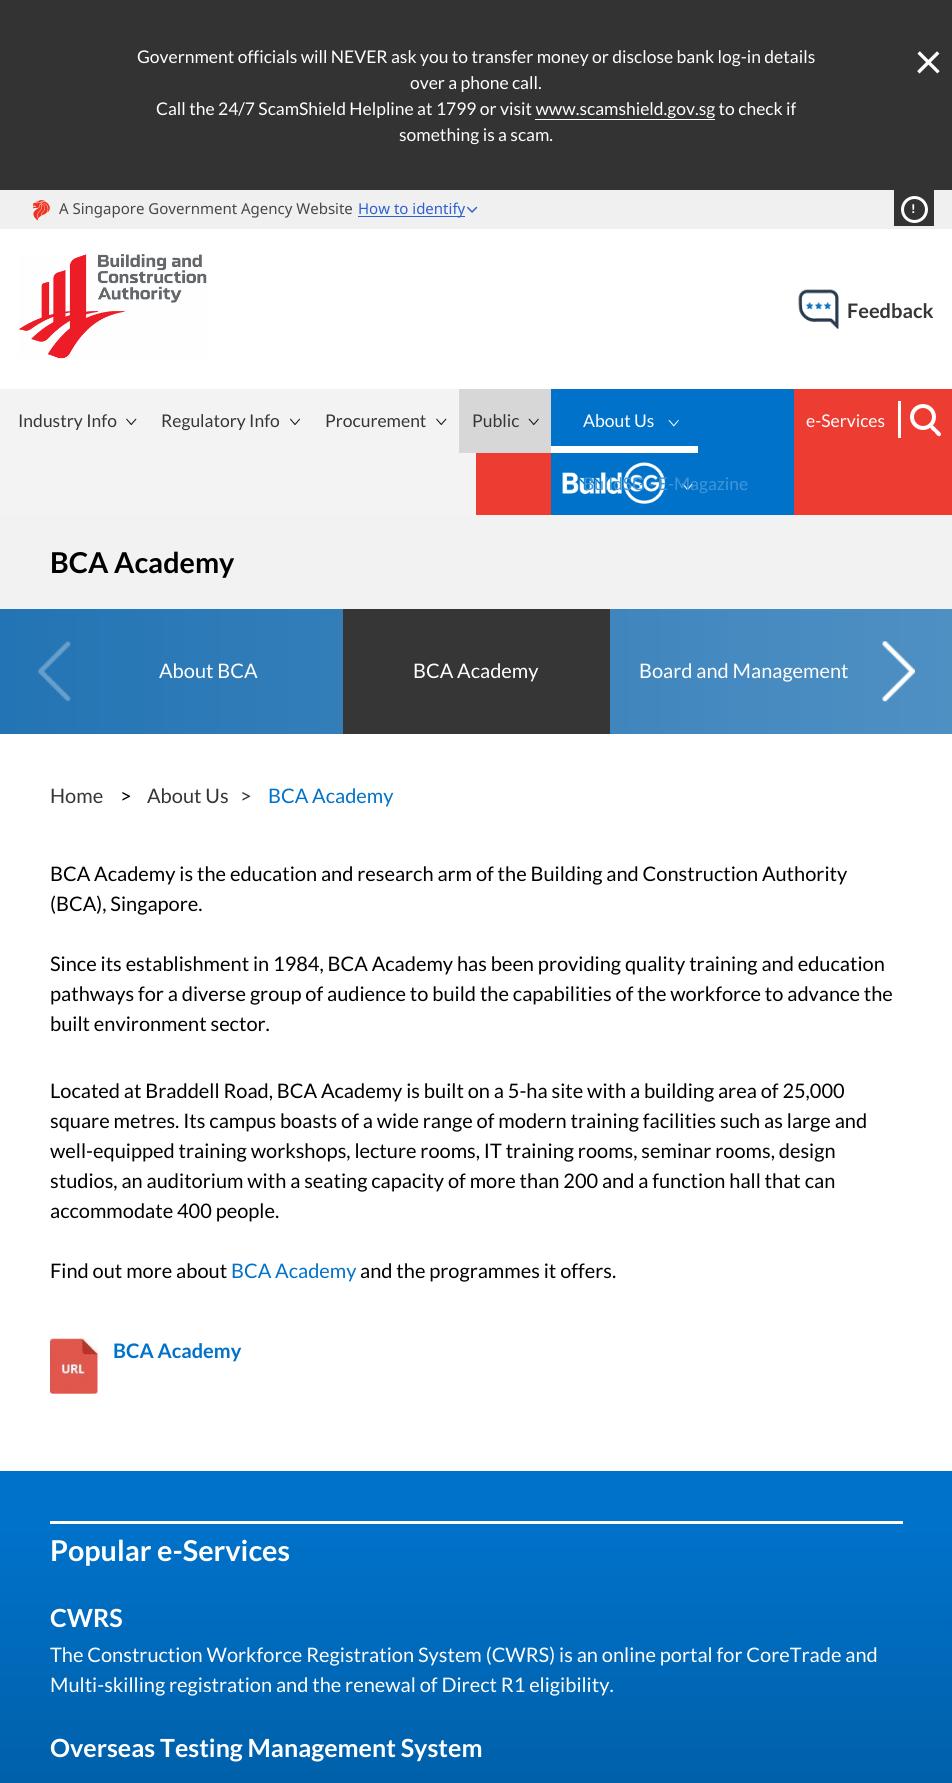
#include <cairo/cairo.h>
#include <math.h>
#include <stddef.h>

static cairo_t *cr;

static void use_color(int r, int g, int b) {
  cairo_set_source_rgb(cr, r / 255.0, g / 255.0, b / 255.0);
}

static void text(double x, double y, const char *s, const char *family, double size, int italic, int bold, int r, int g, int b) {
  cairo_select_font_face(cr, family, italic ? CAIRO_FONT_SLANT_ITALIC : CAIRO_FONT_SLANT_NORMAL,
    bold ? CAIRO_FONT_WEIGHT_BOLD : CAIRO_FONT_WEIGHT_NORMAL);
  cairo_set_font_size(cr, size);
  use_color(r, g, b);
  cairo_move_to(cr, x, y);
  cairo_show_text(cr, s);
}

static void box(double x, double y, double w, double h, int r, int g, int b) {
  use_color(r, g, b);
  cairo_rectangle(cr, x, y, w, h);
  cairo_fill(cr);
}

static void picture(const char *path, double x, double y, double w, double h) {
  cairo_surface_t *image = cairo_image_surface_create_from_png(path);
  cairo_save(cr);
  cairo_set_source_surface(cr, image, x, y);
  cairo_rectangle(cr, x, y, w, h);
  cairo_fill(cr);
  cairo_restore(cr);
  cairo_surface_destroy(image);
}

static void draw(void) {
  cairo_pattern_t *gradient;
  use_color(255, 255, 255);
  cairo_paint(cr);
  box(0, 0, 952, 190, 51, 51, 51);
  box(535, 119, 180, 1, 255, 255, 255);
  box(0, 190, 952, 39, 240, 240, 240);
  picture("img_01.png", 33, 200, 17, 21);
  box(358, 216, 107, 1, 47, 96, 206);
  picture("img_02.png", 466, 206, 12, 7);
  box(894, 190, 40, 36, 51, 51, 51);
  cairo_arc(cr, 914.5, 209.5, 12, 0, 2 * M_PI);
  use_color(255, 255, 255);
  cairo_set_line_width(cr, 3);
  cairo_stroke(cr);
  picture("img_03.png", 18, 254, 189, 105);
  picture("img_04.png", 798, 289, 41, 41);
  box(0, 389, 476, 126, 243, 243, 243);
  box(476, 389, 476, 126, 237, 61, 51);
  picture("img_05.png", 126, 418, 11, 7);
  picture("img_06.png", 290, 418, 10, 7);
  picture("img_05.png", 436, 418, 11, 7);
  box(459, 389, 92, 64, 215, 215, 215);
  picture("img_07.png", 528, 418, 11, 7);
  box(551, 389, 243, 126, 0, 114, 202);
  picture("img_08.png", 668, 420, 11, 7);
  box(551, 446, 147, 7, 255, 255, 255);
  picture("img_09.png", 562, 462, 103, 42);
  picture("img_10.png", 682, 483, 11, 7);
  box(898, 401, 3, 37, 255, 255, 255);
  cairo_arc(cr, 923, 417, 11, 0, 2 * M_PI);
  cairo_set_line_width(cr, 4);
  cairo_stroke(cr);
  cairo_new_path(cr);
  cairo_move_to(cr, 940.5, 435.5);
  cairo_curve_to(cr, 938.5, 438, 935.5, 433.5, 934.5, 432);
  cairo_curve_to(cr, 933, 431, 928.5, 428, 931, 426);
  cairo_curve_to(cr, 933, 424, 936, 428.5, 937, 429.5);
  cairo_curve_to(cr, 938, 430.5, 942.5, 433.5, 940.5, 435.5);
  cairo_close_path(cr);
  cairo_fill(cr);
  box(0, 515, 952, 94, 242, 242, 242);
  gradient = cairo_pattern_create_linear(0, 671, 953, 671);
  cairo_pattern_add_color_stop_rgba(gradient, 0, 0.137, 0.455, 0.706, 1);
  cairo_pattern_add_color_stop_rgba(gradient, 1, 0.31, 0.565, 0.765, 1);
  cairo_set_source(cr, gradient);
  cairo_pattern_destroy(gradient);
  cairo_rectangle(cr, 0, 609, 952, 125);
  cairo_fill(cr);
  picture("img_11.png", 37, 641, 34, 61);
  box(343, 609, 267, 125, 54, 54, 54);
  picture("img_12.png", 882, 641, 33, 61);
  picture("img_13.png", 50, 1338, 48, 56);
  gradient = cairo_pattern_create_linear(476, 1471, 476, 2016);
  cairo_pattern_add_color_stop_rgba(gradient, 0, 0, 0.447, 0.792, 1);
  cairo_pattern_add_color_stop_rgba(gradient, 0.1, 0, 0.447, 0.792, 1);
  cairo_pattern_add_color_stop_rgba(gradient, 1, 0, 0.314, 0.553, 1);
  cairo_set_source(cr, gradient);
  cairo_pattern_destroy(gradient);
  cairo_rectangle(cr, 0, 1471, 952, 312);
  cairo_fill(cr);
  box(50, 1521, 853, 3, 255, 255, 255);
  text(137, 63, "Government officials will NEVER ask you to transfer money or disclose bank log-in details", "Lato", 17.5, 0, 0, 255, 255, 255);
  text(410, 89, "over a phone call.", "Lato", 17.5, 0, 0, 255, 255, 255);
  text(156, 115, "Call the 24/7 ScamShield Helpline at 1799 or visit www.scamshield.gov.sg to check if", "Lato", 17.5, 0, 0, 255, 255, 255);
  text(399, 141, "something is a scam.", "Lato", 17.5, 0, 0, 255, 255, 255);
  text(914, 79, "×", "Lato", 50, 0, 0, 255, 255, 255);
  text(59, 214, "A Singapore Government Agency Website", "Noto Sans", 15, 0, 0, 71, 71, 71);
  text(358, 214, "How to identify", "Noto Sans", 15, 0, 0, 47, 96, 206);
  text(911, 213, "!", "Lato Black", 12, 0, 0, 255, 255, 255);
  text(847, 318, "Feedback", "Lato", 20, 0, 1, 54, 54, 54);
  text(18, 427, "Industry Info", "Lato", 17.5, 0, 0, 54, 54, 54);
  text(161, 427, "Regulatory Info", "Lato", 17.5, 0, 0, 54, 54, 54);
  text(325, 427, "Procurement", "Lato", 17.5, 0, 0, 54, 54, 54);
  text(472, 427, "Public", "Lato", 17.5, 0, 0, 54, 54, 54);
  text(583, 427, "About Us", "Lato", 17.5, 0, 0, 255, 255, 255);
  text(583, 490, "BuildSG - E-Magazine", "Lato", 17.5, 0, 0, 64, 150, 215);
  text(806, 427, "e-Services", "Lato", 17.5, 0, 0, 255, 255, 255);
  text(50, 573, "BCA Academy", "Lato", 28.75, 0, 1, 0, 0, 0);
  text(159, 678, "About BCA", "Lato", 20, 0, 0, 255, 255, 255);
  text(413, 678, "BCA Academy", "Lato", 20, 0, 0, 255, 255, 255);
  text(639, 678, "Board and Management", "Lato", 20, 0, 0, 255, 255, 255);
  text(50, 803, "Home", "Lato", 20, 0, 0, 54, 54, 54);
  text(120, 803, ">", "Lato", 20, 0, 0, 0, 0, 0);
  text(147, 803, "About Us", "Lato", 20, 0, 0, 54, 54, 54);
  text(240, 803, ">", "Lato", 20, 0, 0, 54, 54, 54);
  text(268, 803, "BCA Academy", "Lato", 20, 0, 0, 0, 114, 202);
  text(50, 881, "BCA Academy is the education and research arm of the Building and Construction Authority", "Lato", 20, 0, 0, 0, 0, 0);
  text(50, 911, "(BCA), Singapore.", "Lato", 20, 0, 0, 0, 0, 0);
  text(50, 971, "Since its establishment in 1984, BCA Academy has been providing quality training and education", "Lato", 20, 0, 0, 0, 0, 0);
  text(50, 1001, "pathways for a diverse group of audience to build the capabilities of the workforce to advance the", "Lato", 20, 0, 0, 0, 0, 0);
  text(50, 1031, "built environment sector.", "Lato", 20, 0, 0, 0, 0, 0);
  text(50, 1098, "Located at Braddell Road, BCA Academy is built on a 5-ha site with a building area of 25,000", "Lato", 20, 0, 0, 0, 0, 0);
  text(50, 1128, "square metres. Its campus boasts of a wide range of modern training facilities such as large and", "Lato", 20, 0, 0, 0, 0, 0);
  text(50, 1158, "well-equipped training workshops, lecture rooms, IT training rooms, seminar rooms, design", "Lato", 20, 0, 0, 0, 0, 0);
  text(50, 1188, "studios, an auditorium with a seating capacity of more than 200 and a function hall that can", "Lato", 20, 0, 0, 0, 0, 0);
  text(50, 1218, "accommodate 400 people.", "Lato", 20, 0, 0, 0, 0, 0);
  text(50, 1278, "Find out more about", "Lato", 20, 0, 0, 0, 0, 0);
  text(231, 1278, "BCA Academy", "Lato", 20, 0, 0, 0, 114, 202);
  text(360, 1278, "and the programmes it offers.", "Lato", 20, 0, 0, 0, 0, 0);
  text(113, 1358, "BCA Academy", "Lato", 20, 0, 1, 0, 114, 202);
  text(50, 1561, "Popular e-Services", "Lato", 28.75, 0, 1, 255, 255, 255);
  text(50, 1627, "CWRS", "Lato", 25, 0, 1, 255, 255, 255);
  text(50, 1662, "The Construction Workforce Registration System (CWRS) is an online portal for CoreTrade and", "Lato", 20, 0, 0, 255, 255, 255);
  text(50, 1692, "Multi-skilling registration and the renewal of Direct R1 eligibility.", "Lato", 20, 0, 0, 255, 255, 255);
  text(50, 1757, "Overseas Testing Management System", "Lato", 25, 0, 1, 255, 255, 255);
}

int main(void) {
  cairo_surface_t *surface = cairo_image_surface_create(CAIRO_FORMAT_RGB24, 952, 1783);
  cr = cairo_create(surface);
  cairo_font_options_t *options = cairo_font_options_create();
  cairo_font_options_set_hint_metrics(options, CAIRO_HINT_METRICS_OFF);
  cairo_font_options_set_hint_style(options, CAIRO_HINT_STYLE_NONE);
  cairo_set_font_options(cr, options);
  cairo_set_miter_limit(cr, 4);
  draw();
  cairo_surface_write_to_png(surface, "out.png");
  cairo_font_options_destroy(options);
  cairo_destroy(cr);
  cairo_surface_destroy(surface);
  return 0;
}
